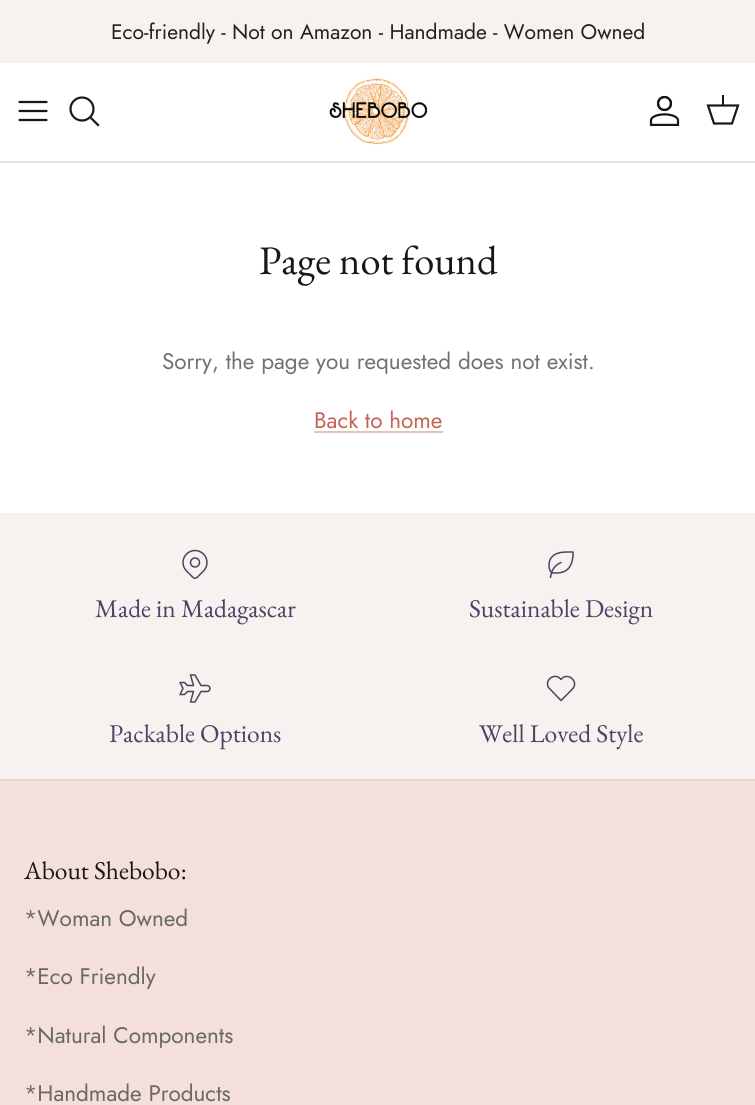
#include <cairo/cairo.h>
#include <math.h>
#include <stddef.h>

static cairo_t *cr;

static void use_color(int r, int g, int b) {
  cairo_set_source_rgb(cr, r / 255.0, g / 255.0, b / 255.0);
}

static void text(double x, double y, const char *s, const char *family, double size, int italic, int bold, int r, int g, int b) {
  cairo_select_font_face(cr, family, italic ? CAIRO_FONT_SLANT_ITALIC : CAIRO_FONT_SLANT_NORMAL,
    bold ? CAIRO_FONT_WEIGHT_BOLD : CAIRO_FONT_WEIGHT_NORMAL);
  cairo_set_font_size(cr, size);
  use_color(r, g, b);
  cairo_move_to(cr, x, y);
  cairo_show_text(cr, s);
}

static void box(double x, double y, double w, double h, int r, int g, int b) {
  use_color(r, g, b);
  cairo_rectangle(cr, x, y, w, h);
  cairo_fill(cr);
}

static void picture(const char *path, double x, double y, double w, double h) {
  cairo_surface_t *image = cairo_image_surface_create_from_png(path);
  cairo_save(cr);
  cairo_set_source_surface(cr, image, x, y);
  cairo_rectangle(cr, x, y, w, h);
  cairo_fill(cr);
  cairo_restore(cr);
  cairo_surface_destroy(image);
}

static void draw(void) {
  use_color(255, 255, 255);
  cairo_paint(cr);
  box(0, 0, 755, 63, 247, 241, 240);
  box(0, 161, 755, 2, 223, 227, 232);
  cairo_new_path(cr);
  cairo_move_to(cr, 19.5, 111);
  cairo_line_to(cr, 46.5, 111);
  cairo_move_to(cr, 19.5, 102);
  cairo_line_to(cr, 46.5, 102);
  cairo_move_to(cr, 19.5, 120);
  cairo_line_to(cr, 46.5, 120);
  use_color(23, 23, 23);
  cairo_set_line_width(cr, 2.2);
  cairo_set_line_cap(cr, CAIRO_LINE_CAP_ROUND);
  cairo_set_line_join(cr, CAIRO_LINE_JOIN_ROUND);
  cairo_stroke(cr);
  cairo_arc(cr, 82, 109, 11.5, 0, 2 * M_PI);
  cairo_set_line_cap(cr, CAIRO_LINE_CAP_BUTT);
  cairo_set_line_join(cr, CAIRO_LINE_JOIN_MITER);
  cairo_stroke(cr);
  cairo_new_path(cr);
  cairo_move_to(cr, 91.5, 118.5);
  cairo_line_to(cr, 98, 125);
  cairo_set_line_cap(cr, CAIRO_LINE_CAP_SQUARE);
  cairo_stroke(cr);
  picture("img_01.png", 329, 78, 99, 67);
  picture("img_02.png", 649, 95, 31, 31);
  cairo_new_path(cr);
  cairo_move_to(cr, 708, 105.5);
  cairo_line_to(cr, 738, 105.5);
  cairo_line_to(cr, 732, 123.5);
  cairo_line_to(cr, 714, 123.5);
  cairo_close_path(cr);
  cairo_set_line_cap(cr, CAIRO_LINE_CAP_BUTT);
  cairo_stroke(cr);
  box(722, 95, 2, 11, 23, 23, 23);
  box(314, 431, 129, 2, 230, 193, 186);
  box(0, 513, 755, 266, 247, 241, 239);
  picture("img_03.png", 182, 549, 26, 30);
  picture("img_04.png", 548, 551, 26, 28);
  picture("img_05.png", 179, 674, 32, 29);
  cairo_new_path(cr);
  cairo_move_to(cr, 572, 689.5);
  cairo_line_to(cr, 561, 700.5);
  cairo_line_to(cr, 548.5, 687.5);
  cairo_curve_to(cr, 544, 679.5, 555.5, 672, 561, 679.5);
  cairo_curve_to(cr, 567.5, 671, 580, 682, 572, 689.5);
  use_color(69, 69, 100);
  cairo_set_line_width(cr, 1.5);
  cairo_set_line_cap(cr, CAIRO_LINE_CAP_ROUND);
  cairo_set_line_join(cr, CAIRO_LINE_JOIN_ROUND);
  cairo_stroke(cr);
  box(0, 781, 755, 324, 244, 223, 219);
  box(0, 779, 755, 2, 236, 214, 209);
  text(111, 39, "Eco-friendly - Not on Amazon - Handmade - Women Owned", "Jost", 21, 0, 0, 33, 33, 33);
  text(259, 274, "Page not found", "EB Garamond", 40.5, 0, 0, 23, 23, 23);
  text(162, 369, "Sorry, the page you requested does not exist.", "Jost", 22.5, 0, 0, 112, 113, 115);
  text(314, 428, "Back to home", "Jost", 22.5, 0, 0, 193, 100, 82);
  text(95, 617, "Made in Madagascar", "EB Garamond", 25.5, 0, 0, 69, 69, 100);
  text(469, 617, "Sustainable Design", "EB Garamond", 25.5, 0, 0, 69, 69, 100);
  text(109, 742, "Packable Options", "EB Garamond", 25.5, 0, 0, 69, 69, 100);
  text(479, 742, "Well Loved Style", "EB Garamond", 25.5, 0, 0, 69, 69, 100);
  text(24, 879, "About Shebobo:", "EB Garamond", 25.5, 0, 0, 23, 23, 23);
  text(24, 926, "*Woman Owned", "Jost", 22.5, 0, 0, 103, 104, 105);
  text(24, 984, "*Eco Friendly", "Jost", 22.5, 0, 0, 103, 104, 105);
  text(24, 1043, "*Natural Components", "Jost", 22.5, 0, 0, 103, 104, 105);
  text(24, 1101, "*Handmade Products", "Jost", 22.5, 0, 0, 103, 104, 105);
}

int main(void) {
  cairo_surface_t *surface = cairo_image_surface_create(CAIRO_FORMAT_RGB24, 755, 1105);
  cr = cairo_create(surface);
  cairo_font_options_t *options = cairo_font_options_create();
  cairo_font_options_set_hint_metrics(options, CAIRO_HINT_METRICS_OFF);
  cairo_font_options_set_hint_style(options, CAIRO_HINT_STYLE_NONE);
  cairo_set_font_options(cr, options);
  cairo_set_miter_limit(cr, 4);
  draw();
  cairo_surface_write_to_png(surface, "out.png");
  cairo_font_options_destroy(options);
  cairo_destroy(cr);
  cairo_surface_destroy(surface);
  return 0;
}
